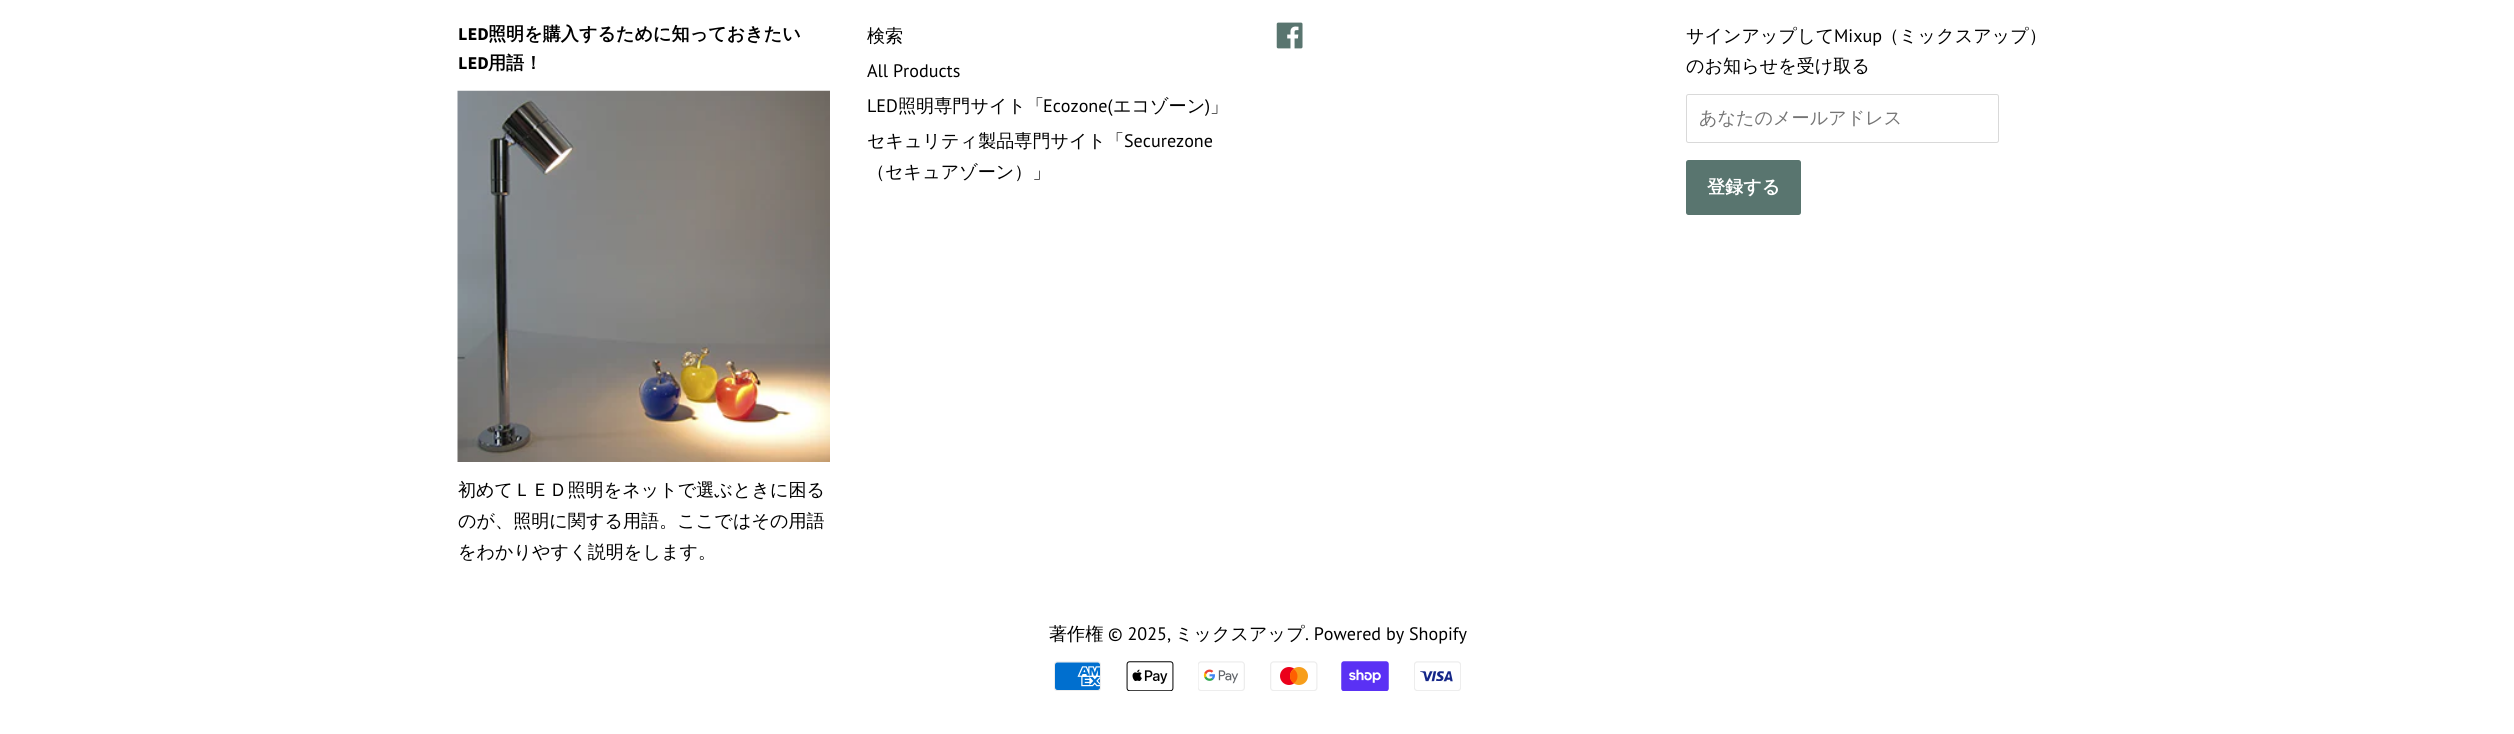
#include <cairo/cairo.h>
#include <math.h>
#include <stddef.h>

static cairo_t *cr;

static void use_color(int r, int g, int b) {
  cairo_set_source_rgb(cr, r / 255.0, g / 255.0, b / 255.0);
}

static void text(double x, double y, const char *s, const char *family, double size, int italic, int bold, int r, int g, int b) {
  cairo_select_font_face(cr, family, italic ? CAIRO_FONT_SLANT_ITALIC : CAIRO_FONT_SLANT_NORMAL,
    bold ? CAIRO_FONT_WEIGHT_BOLD : CAIRO_FONT_WEIGHT_NORMAL);
  cairo_set_font_size(cr, size);
  use_color(r, g, b);
  cairo_move_to(cr, x, y);
  cairo_show_text(cr, s);
}

static void round_rect(double x, double y, double w, double h, double r) {
  cairo_new_sub_path(cr);
  cairo_arc(cr, x + w - r, y + h - r, r, 0, M_PI / 2);
  cairo_arc(cr, x + r, y + h - r, r, M_PI / 2, M_PI);
  cairo_arc(cr, x + r, y + r, r, M_PI, 1.5 * M_PI);
  cairo_arc(cr, x + w - r, y + r, r, 1.5 * M_PI, 2 * M_PI);
  cairo_close_path(cr);
}

static void picture(const char *path, double x, double y, double w, double h) {
  cairo_surface_t *image = cairo_image_surface_create_from_png(path);
  cairo_save(cr);
  cairo_set_source_surface(cr, image, x, y);
  cairo_rectangle(cr, x, y, w, h);
  cairo_fill(cr);
  cairo_restore(cr);
  cairo_surface_destroy(image);
}

static void draw(void) {
  use_color(255, 255, 255);
  cairo_paint(cr);
  picture("img_01.png", 457, 90, 373, 372);
  picture("img_02.png", 1276, 22, 27, 27);
  round_rect(1686.5, 94.5, 312, 48, 2);
  use_color(217, 217, 217);
  cairo_set_line_width(cr, 1);
  cairo_stroke(cr);
  use_color(89, 117, 111);
  round_rect(1686, 160, 115, 55, 2.5);
  cairo_fill(cr);
  picture("img_03.png", 1054, 661, 47, 30);
  picture("img_04.png", 1126, 661, 48, 30);
  picture("img_05.png", 1198, 661, 47, 30);
  picture("img_06.png", 1270, 661, 48, 30);
  picture("img_07.png", 1341, 661, 48, 30);
  picture("img_08.png", 1414, 661, 47, 30);
  text(458, 40, "LED", "Source Sans Pro", 18.1, 0, 1, 0, 0, 0);
  text(488, 40, "照明を購入するために知っておきたい", "WenQuanYi Zen Hei", 18.1, 0, 1, 0, 0, 0);
  text(458, 69, "LED", "Source Sans Pro", 18.1, 0, 1, 0, 0, 0);
  text(488, 69, "用語！", "WenQuanYi Zen Hei", 18.1, 0, 1, 0, 0, 0);
  text(458, 496, "初めてＬＥＤ照明をネットで選ぶときに困る", "WenQuanYi Zen Hei Medium", 18.1, 0, 0, 0, 0, 0);
  text(458, 527, "のが、照明に関する用語。ここではその用語", "WenQuanYi Zen Hei Medium", 18.1, 0, 0, 0, 0, 0);
  text(458, 558, "をわかりやすく説明をします。", "WenQuanYi Zen Hei Medium", 18.1, 0, 0, 0, 0, 0);
  text(867, 42, "検索", "WenQuanYi Zen Hei Medium", 18.1, 0, 0, 0, 0, 0);
  text(867, 77, "All Products", "PT Sans", 18.1, 0, 0, 0, 0, 0);
  text(867, 112, "LED", "PT Sans", 18.1, 0, 0, 0, 0, 0);
  text(898, 112, "照明専門サイト「", "WenQuanYi Zen Hei Medium", 18.1, 0, 0, 0, 0, 0);
  text(1043, 112, "Ecozone(", "PT Sans", 18.1, 0, 0, 0, 0, 0);
  text(1113, 112, "エコゾーン", "WenQuanYi Zen Hei Medium", 18.1, 0, 0, 0, 0, 0);
  text(1205, 112, ")", "PT Sans", 18.1, 0, 0, 0, 0, 0);
  text(1210, 112, "」", "WenQuanYi Zen Hei Medium", 18.1, 0, 0, 0, 0, 0);
  text(867, 147, "セキュリティ製品専門サイト「", "WenQuanYi Zen Hei Medium", 18.1, 0, 0, 0, 0, 0);
  text(1124, 147, "Securezone", "PT Sans", 18.1, 0, 0, 0, 0, 0);
  text(867, 178, "（セキュアゾーン）」", "WenQuanYi Zen Hei Medium", 18.1, 0, 0, 0, 0, 0);
  text(1686, 42, "サインアップして", "WenQuanYi Zen Hei Medium", 18.1, 0, 0, 0, 0, 0);
  text(1834, 42, "Mixup", "PT Sans", 18.1, 0, 0, 0, 0, 0);
  text(1881, 42, "（ミックスアップ）", "WenQuanYi Zen Hei Medium", 18.1, 0, 0, 0, 0, 0);
  text(1686, 72, "のお知らせを受け取る", "WenQuanYi Zen Hei Medium", 18.1, 0, 0, 0, 0, 0);
  text(1699, 124, "あなたのメールアドレス", "WenQuanYi Zen Hei Medium", 18.1, 0, 0, 117, 117, 117);
  text(1707, 193, "登録する", "WenQuanYi Zen Hei", 18.1, 0, 1, 255, 255, 255);
  text(1049, 640, "著作権", "WenQuanYi Zen Hei Medium", 18.1, 0, 0, 0, 0, 0);
  text(1108, 640, "© 2025,", "PT Sans", 18.1, 0, 0, 0, 0, 0);
  text(1175, 640, "ミックスアップ", "WenQuanYi Zen Hei Medium", 18.1, 0, 0, 0, 0, 0);
  text(1305, 640, ". Powered by Shopify", "PT Sans", 18.1, 0, 0, 0, 0, 0);
}

int main(void) {
  cairo_surface_t *surface = cairo_image_surface_create(CAIRO_FORMAT_RGB24, 2514, 734);
  cr = cairo_create(surface);
  cairo_font_options_t *options = cairo_font_options_create();
  cairo_font_options_set_hint_metrics(options, CAIRO_HINT_METRICS_OFF);
  cairo_font_options_set_hint_style(options, CAIRO_HINT_STYLE_NONE);
  cairo_set_font_options(cr, options);
  cairo_set_miter_limit(cr, 4);
  draw();
  cairo_surface_write_to_png(surface, "out.png");
  cairo_font_options_destroy(options);
  cairo_destroy(cr);
  cairo_surface_destroy(surface);
  return 0;
}
